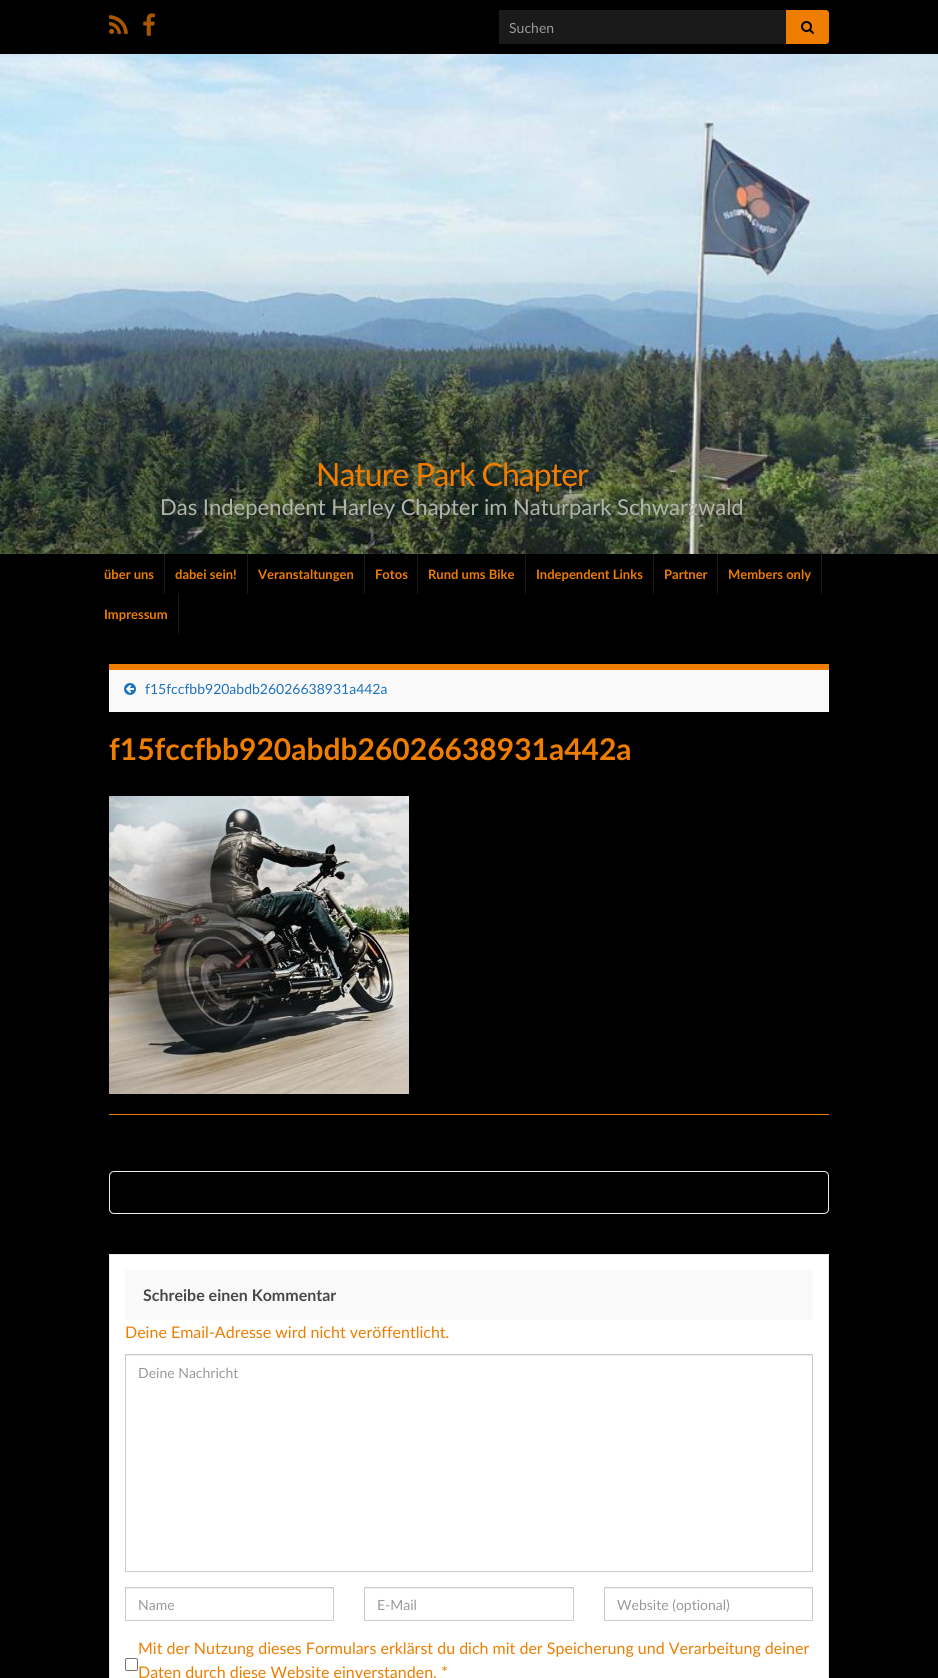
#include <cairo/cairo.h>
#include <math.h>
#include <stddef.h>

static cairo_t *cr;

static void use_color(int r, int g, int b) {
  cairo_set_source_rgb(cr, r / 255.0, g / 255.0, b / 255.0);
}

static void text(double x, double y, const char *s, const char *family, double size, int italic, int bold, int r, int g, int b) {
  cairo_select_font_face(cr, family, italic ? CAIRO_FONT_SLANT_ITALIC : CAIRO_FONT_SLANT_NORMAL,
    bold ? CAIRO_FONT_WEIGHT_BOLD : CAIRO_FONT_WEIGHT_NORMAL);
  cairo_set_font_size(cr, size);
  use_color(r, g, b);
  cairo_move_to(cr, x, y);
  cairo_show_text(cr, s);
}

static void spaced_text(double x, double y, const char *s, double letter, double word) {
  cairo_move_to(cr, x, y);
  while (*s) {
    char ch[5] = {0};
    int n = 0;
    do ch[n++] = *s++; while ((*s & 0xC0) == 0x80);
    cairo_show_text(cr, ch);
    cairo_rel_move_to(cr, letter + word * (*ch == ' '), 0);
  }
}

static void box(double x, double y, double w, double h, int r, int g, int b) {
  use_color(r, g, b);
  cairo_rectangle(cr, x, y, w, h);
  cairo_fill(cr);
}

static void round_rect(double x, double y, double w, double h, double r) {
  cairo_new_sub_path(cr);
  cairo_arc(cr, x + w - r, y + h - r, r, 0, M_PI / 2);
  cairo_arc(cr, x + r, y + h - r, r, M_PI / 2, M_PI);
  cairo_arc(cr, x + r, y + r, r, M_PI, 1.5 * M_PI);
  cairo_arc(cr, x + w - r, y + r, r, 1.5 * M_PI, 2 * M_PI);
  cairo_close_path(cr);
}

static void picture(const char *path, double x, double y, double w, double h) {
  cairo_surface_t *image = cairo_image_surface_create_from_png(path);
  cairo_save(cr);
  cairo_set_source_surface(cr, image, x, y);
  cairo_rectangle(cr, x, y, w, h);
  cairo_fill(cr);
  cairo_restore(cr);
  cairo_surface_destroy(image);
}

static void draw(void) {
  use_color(0, 0, 0);
  cairo_paint(cr);
  picture("img_01.png", 109, 15, 19, 19);
  picture("img_02.png", 143, 13, 12, 23);
  box(499, 10, 287, 34, 26, 26, 26);
  use_color(239, 125, 0);
  cairo_new_path(cr);
  cairo_move_to(cr, 786, 10);
  cairo_line_to(cr, 826, 10);
  cairo_curve_to(cr, 827.5, 10, 829, 11.5, 829, 13);
  cairo_line_to(cr, 829, 41);
  cairo_curve_to(cr, 829, 42.5, 827.5, 44, 826, 44);
  cairo_line_to(cr, 786, 44);
  cairo_close_path(cr);
  cairo_fill(cr);
  picture("img_03.png", 801, 21, 13, 13);
  picture("img_04.png", 0, 54, 938, 500);
  box(164, 554, 1, 40, 26, 26, 26);
  box(247, 554, 1, 40, 26, 26, 26);
  box(364, 554, 1, 40, 26, 26, 26);
  box(417, 554, 1, 40, 26, 26, 26);
  box(525, 554, 1, 40, 26, 26, 26);
  box(653, 554, 1, 40, 26, 26, 26);
  box(717, 554, 1, 40, 26, 26, 26);
  box(821, 554, 1, 40, 26, 26, 26);
  box(178, 594, 1, 40, 26, 26, 26);
  box(109, 670, 720, 42, 249, 249, 249);
  box(109, 664, 720, 6, 239, 125, 0);
  picture("img_05.png", 124, 683, 12, 12);
  picture("img_06.png", 109, 796, 300, 298);
  box(109, 1114, 720, 1, 239, 125, 0);
  round_rect(109.5, 1171.5, 719, 42, 4.5);
  use_color(235, 237, 240);
  cairo_set_line_width(cr, 1);
  cairo_stroke(cr);
  use_color(255, 255, 255);
  cairo_rectangle(cr, 109.5, 1254.5, 719, 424);
  cairo_fill_preserve(cr);
  use_color(233, 232, 227);
  cairo_stroke(cr);
  box(125, 1270, 688, 50, 249, 249, 249);
  box(126, 1355, 686, 1, 236, 236, 236);
  cairo_rectangle(cr, 125.5, 1354.5, 687, 217);
  use_color(204, 204, 204);
  cairo_stroke(cr);
  box(126, 1588, 207, 1, 236, 236, 236);
  cairo_rectangle(cr, 125.5, 1587.5, 208, 33);
  use_color(204, 204, 204);
  cairo_stroke(cr);
  box(365, 1588, 208, 1, 236, 236, 236);
  cairo_rectangle(cr, 364.5, 1587.5, 209, 33);
  use_color(204, 204, 204);
  cairo_stroke(cr);
  box(605, 1588, 207, 1, 236, 236, 236);
  cairo_rectangle(cr, 604.5, 1587.5, 208, 33);
  use_color(204, 204, 204);
  cairo_stroke(cr);
  round_rect(125.5, 1658.5, 12, 12, 1.5);
  use_color(118, 118, 118);
  cairo_stroke(cr);
  text(509, 33, "Suchen", "Lato", 14, 0, 0, 153, 153, 153);
  cairo_set_font_size(cr, 32);
  use_color(239, 125, 0);
  spaced_text(316, 486, "Nature Park Chapter", -1, 0);
  text(160, 515, "Das Independent Harley Chapter im Naturpark Schwarzwald", "Lato", 22, 0, 0, 176, 180, 172);
  text(104, 579, "über uns", "Lato", 13, 0, 1, 239, 125, 0);
  text(175, 579, "dabei sein!", "Lato", 13, 0, 1, 239, 125, 0);
  text(258, 579, "Veranstaltungen", "Lato", 13, 0, 1, 239, 125, 0);
  text(375, 579, "Fotos", "Lato", 13, 0, 1, 239, 125, 0);
  text(428, 579, "Rund ums Bike", "Lato", 13, 0, 1, 239, 125, 0);
  text(536, 579, "Independent Links", "Lato", 13, 0, 1, 239, 125, 0);
  text(664, 579, "Partner", "Lato", 13, 0, 1, 239, 125, 0);
  text(728, 579, "Members only", "Lato", 13, 0, 1, 239, 125, 0);
  text(104, 619, "Impressum", "Lato", 13, 0, 1, 239, 125, 0);
  text(145, 694, "f15fccfbb920abdb26026638931a442a", "Lato", 14, 0, 0, 30, 115, 190);
  text(109, 760, "f15fccfbb920abdb26026638931a442a", "Lato", 30, 0, 1, 239, 125, 0);
  text(143, 1301, "Schreibe einen Kommentar", "Lato", 16, 0, 1, 74, 71, 75);
  text(125, 1338, "Deine Email-Adresse wird nicht veröffentlicht.", "Lato", 16, 0, 0, 239, 125, 0);
  text(138, 1378, "Deine Nachricht", "Lato", 14, 0, 0, 153, 153, 153);
  text(138, 1610, "Name", "Lato", 14, 0, 0, 153, 153, 153);
  text(377, 1610, "E-Mail", "Lato", 14, 0, 0, 153, 153, 153);
  text(617, 1610, "Website (optional)", "Lato", 14, 0, 0, 153, 153, 153);
  text(138, 1654, "Mit der Nutzung dieses Formulars erklärst du dich mit der Speicherung und Verarbeitung deiner", "Lato", 16, 0, 0, 239, 125, 0);
  text(138, 1678, "Daten durch diese Website einverstanden. *", "Lato", 16, 0, 0, 239, 125, 0);
}

int main(void) {
  cairo_surface_t *surface = cairo_image_surface_create(CAIRO_FORMAT_RGB24, 938, 1678);
  cr = cairo_create(surface);
  cairo_font_options_t *options = cairo_font_options_create();
  cairo_font_options_set_hint_metrics(options, CAIRO_HINT_METRICS_OFF);
  cairo_font_options_set_hint_style(options, CAIRO_HINT_STYLE_NONE);
  cairo_set_font_options(cr, options);
  cairo_set_miter_limit(cr, 4);
  draw();
  cairo_surface_write_to_png(surface, "out.png");
  cairo_font_options_destroy(options);
  cairo_destroy(cr);
  cairo_surface_destroy(surface);
  return 0;
}
